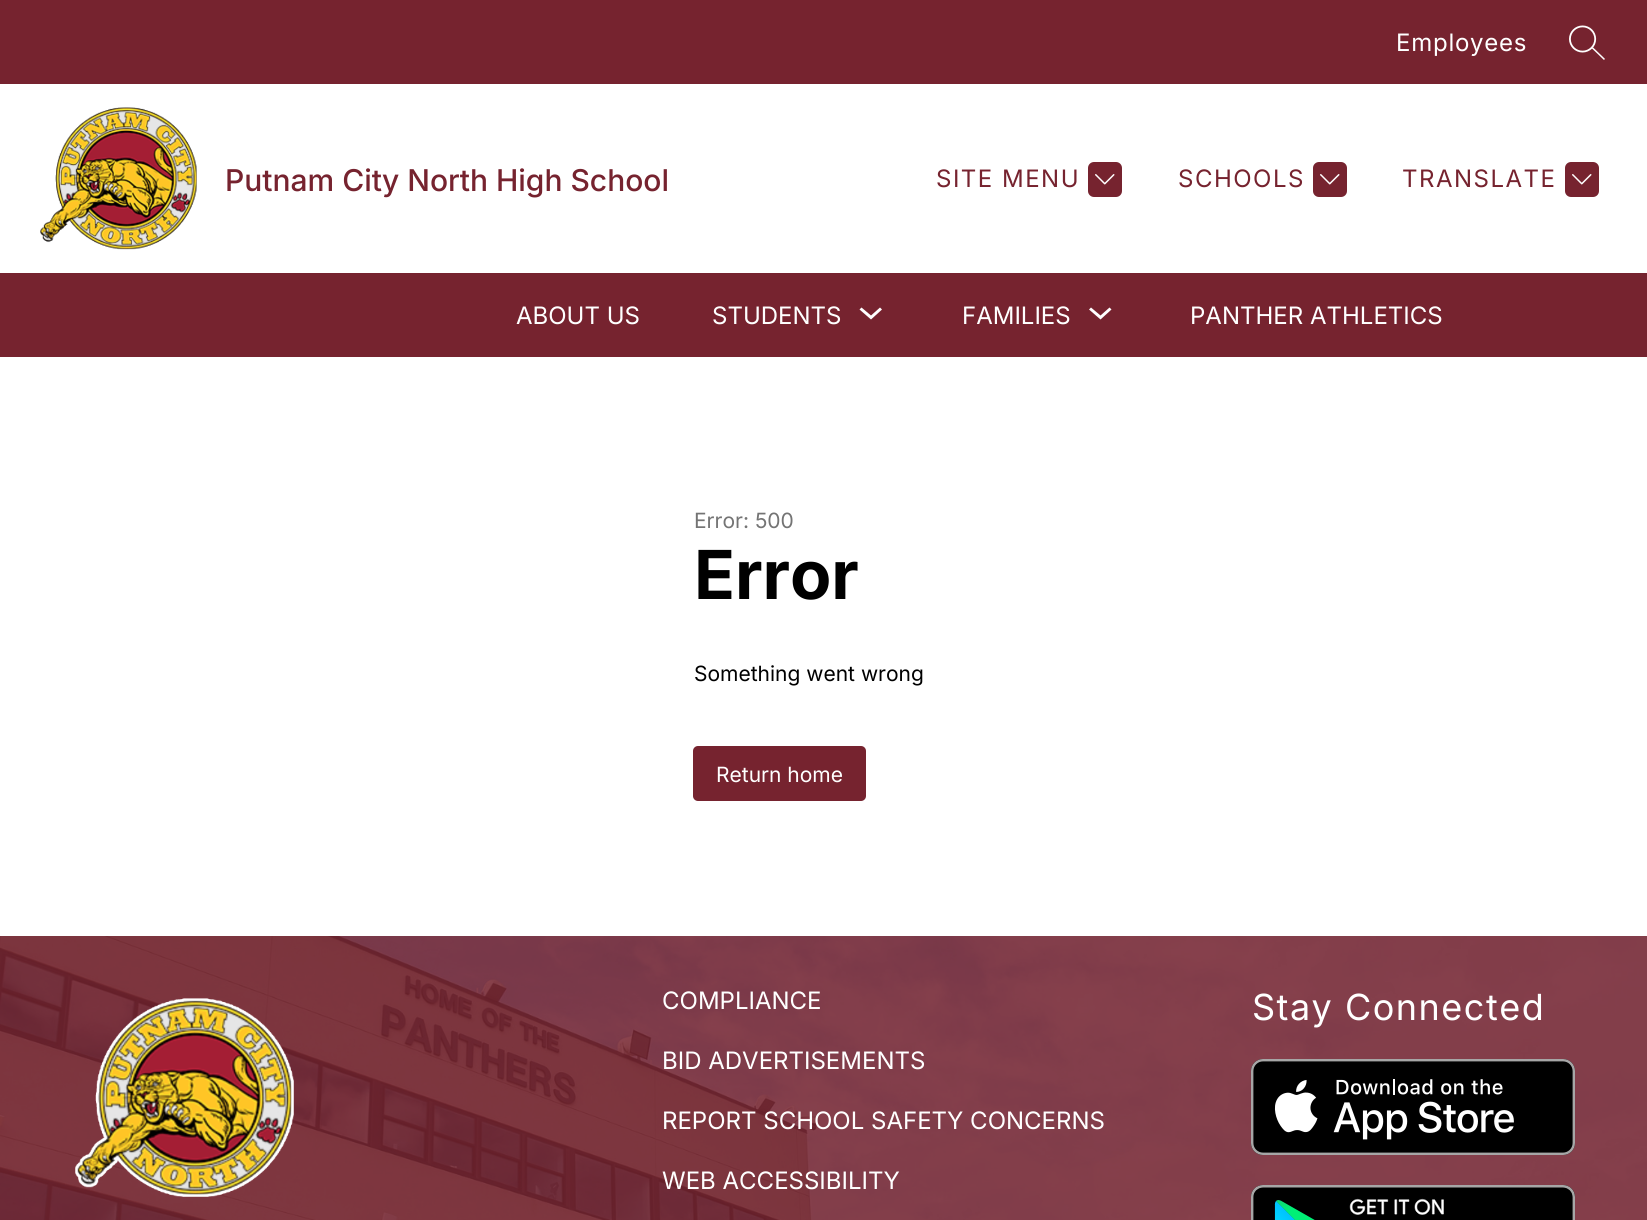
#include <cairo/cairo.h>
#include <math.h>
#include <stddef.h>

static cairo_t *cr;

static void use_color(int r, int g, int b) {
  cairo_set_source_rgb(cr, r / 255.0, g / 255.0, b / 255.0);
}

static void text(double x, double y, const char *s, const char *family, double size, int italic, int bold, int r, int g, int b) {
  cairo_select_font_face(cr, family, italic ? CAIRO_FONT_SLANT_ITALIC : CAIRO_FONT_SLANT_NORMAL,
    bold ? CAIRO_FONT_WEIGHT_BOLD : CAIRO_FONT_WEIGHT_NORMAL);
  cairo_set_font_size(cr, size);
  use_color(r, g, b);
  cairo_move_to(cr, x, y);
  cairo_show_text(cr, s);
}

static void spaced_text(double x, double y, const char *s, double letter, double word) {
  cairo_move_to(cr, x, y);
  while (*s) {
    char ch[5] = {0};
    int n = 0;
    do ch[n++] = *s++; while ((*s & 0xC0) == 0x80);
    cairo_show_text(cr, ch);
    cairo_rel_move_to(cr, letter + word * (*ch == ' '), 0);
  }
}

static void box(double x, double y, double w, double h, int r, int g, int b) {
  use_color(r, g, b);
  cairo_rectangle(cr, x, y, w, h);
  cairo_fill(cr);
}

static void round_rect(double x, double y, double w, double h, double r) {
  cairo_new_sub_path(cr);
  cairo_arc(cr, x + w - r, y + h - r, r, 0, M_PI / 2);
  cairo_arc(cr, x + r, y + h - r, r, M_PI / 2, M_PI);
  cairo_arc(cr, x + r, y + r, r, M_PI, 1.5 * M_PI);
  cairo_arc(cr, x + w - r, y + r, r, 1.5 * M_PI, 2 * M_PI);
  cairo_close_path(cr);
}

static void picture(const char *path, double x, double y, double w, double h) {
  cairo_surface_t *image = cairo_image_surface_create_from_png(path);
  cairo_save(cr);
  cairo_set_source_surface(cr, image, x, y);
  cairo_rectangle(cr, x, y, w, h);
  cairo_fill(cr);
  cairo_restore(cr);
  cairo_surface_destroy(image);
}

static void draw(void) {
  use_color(255, 255, 255);
  cairo_paint(cr);
  box(0, 0, 1647, 84, 118, 35, 47);
  picture("img_01.png", 1569, 25, 36, 35);
  picture("img_02.png", 40, 107, 157, 143);
  picture("img_03.png", 1088, 162, 34, 35);
  picture("img_03.png", 1313, 162, 34, 35);
  picture("img_03.png", 1565, 162, 34, 35);
  box(0, 273, 1647, 84, 118, 35, 47);
  use_color(255, 255, 255);
  cairo_set_fill_rule(cr, CAIRO_FILL_RULE_EVEN_ODD);
  cairo_new_path(cr);
  cairo_move_to(cr, 880, 307.5);
  cairo_line_to(cr, 871, 315.5);
  cairo_line_to(cr, 861.5, 307.5);
  cairo_line_to(cr, 859.5, 309.5);
  cairo_line_to(cr, 871, 319.5);
  cairo_line_to(cr, 882, 309.5);
  cairo_close_path(cr);
  cairo_fill(cr);
  cairo_new_path(cr);
  cairo_move_to(cr, 1109.5, 307.5);
  cairo_line_to(cr, 1100.5, 315.5);
  cairo_line_to(cr, 1091, 307.5);
  cairo_line_to(cr, 1089, 309.5);
  cairo_line_to(cr, 1100.5, 319.5);
  cairo_line_to(cr, 1111.5, 309.5);
  cairo_close_path(cr);
  cairo_fill(cr);
  use_color(118, 35, 47);
  round_rect(693, 746, 173, 55, 5);
  cairo_fill(cr);
  picture("img_04.png", 0, 936, 1647, 284);
  picture("img_05.png", 75, 998, 219, 199);
  picture("img_06.png", 1251, 1059, 324, 96);
  picture("img_07.png", 1251, 1185, 324, 35);
  cairo_select_font_face(cr, "Inter", CAIRO_FONT_SLANT_NORMAL, CAIRO_FONT_WEIGHT_NORMAL);
  cairo_set_font_size(cr, 24);
  use_color(255, 255, 255);
  spaced_text(1396, 51, "Employees", 0.75, 0);
  text(225, 191, "Putnam City North High School", "Inter Medium", 30, 0, 0, 118, 35, 47);
  cairo_select_font_face(cr, "Inter", CAIRO_FONT_SLANT_NORMAL, CAIRO_FONT_WEIGHT_NORMAL);
  cairo_set_font_size(cr, 24);
  spaced_text(936, 187, "SITE MENU", 1.5, 0);
  spaced_text(1178, 187, "SCHOOLS", 1.5, 0);
  spaced_text(1402, 187, "TRANSLATE", 1.5, 0);
  text(516, 324, "ABOUT US", "Inter", 24, 0, 0, 255, 255, 255);
  text(712, 324, "STUDENTS", "Inter", 24, 0, 0, 255, 255, 255);
  text(962, 324, "FAMILIES", "Inter", 24, 0, 0, 255, 255, 255);
  text(1190, 324, "PANTHER ATHLETICS", "Inter", 24, 0, 0, 255, 255, 255);
  text(694, 528, "Error: 500", "Inter", 21, 0, 0, 116, 116, 116);
  text(694, 599, "Error", "Inter", 67.5, 0, 1, 0, 0, 0);
  text(694, 681, "Something went wrong", "Inter", 21, 0, 0, 0, 0, 0);
  text(716, 782, "Return home", "Inter", 21, 0, 0, 255, 255, 255);
  text(662, 1009, "COMPLIANCE", "Inter", 24, 0, 0, 255, 255, 255);
  text(662, 1069, "BID ADVERTISEMENTS", "Inter", 24, 0, 0, 255, 255, 255);
  text(662, 1129, "REPORT SCHOOL SAFETY CONCERNS", "Inter", 24, 0, 0, 255, 255, 255);
  text(662, 1189, "WEB ACCESSIBILITY", "Inter", 24, 0, 0, 255, 255, 255);
  cairo_set_font_size(cr, 36);
  spaced_text(1252, 1020, "Stay Connected", 1.5, 0);
}

int main(void) {
  cairo_surface_t *surface = cairo_image_surface_create(CAIRO_FORMAT_RGB24, 1647, 1220);
  cr = cairo_create(surface);
  cairo_font_options_t *options = cairo_font_options_create();
  cairo_font_options_set_hint_metrics(options, CAIRO_HINT_METRICS_OFF);
  cairo_font_options_set_hint_style(options, CAIRO_HINT_STYLE_NONE);
  cairo_set_font_options(cr, options);
  cairo_set_miter_limit(cr, 4);
  draw();
  cairo_surface_write_to_png(surface, "out.png");
  cairo_font_options_destroy(options);
  cairo_destroy(cr);
  cairo_surface_destroy(surface);
  return 0;
}
